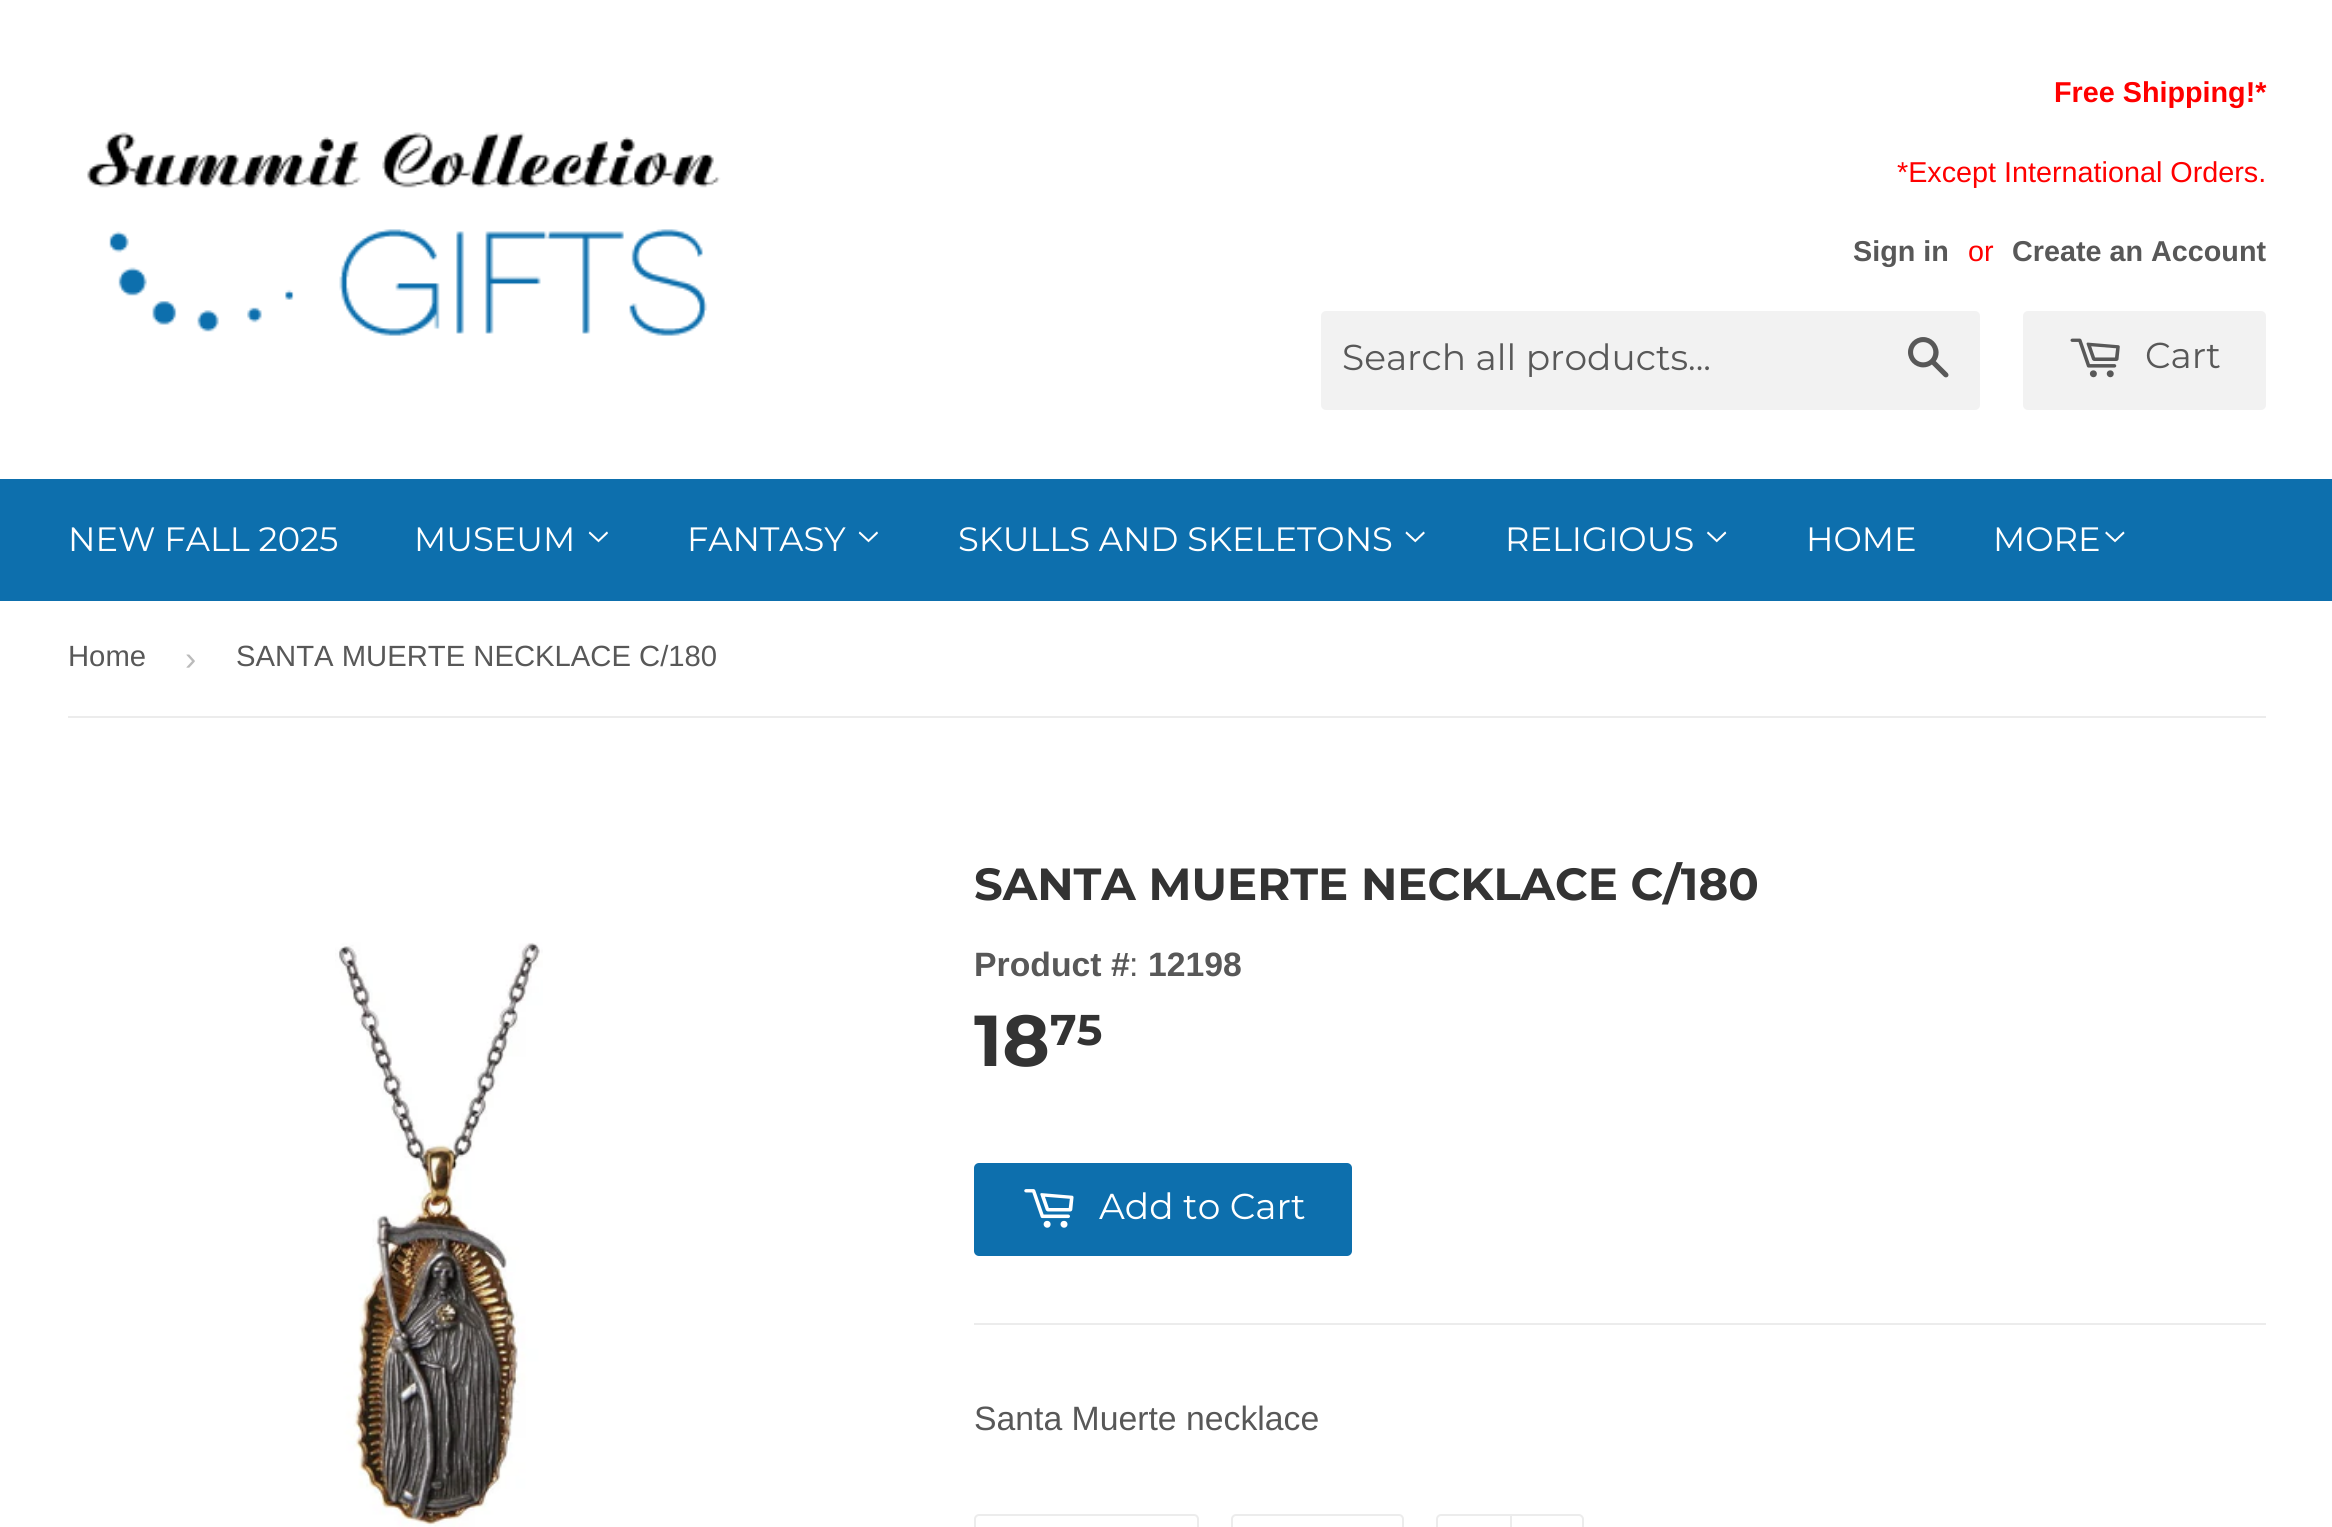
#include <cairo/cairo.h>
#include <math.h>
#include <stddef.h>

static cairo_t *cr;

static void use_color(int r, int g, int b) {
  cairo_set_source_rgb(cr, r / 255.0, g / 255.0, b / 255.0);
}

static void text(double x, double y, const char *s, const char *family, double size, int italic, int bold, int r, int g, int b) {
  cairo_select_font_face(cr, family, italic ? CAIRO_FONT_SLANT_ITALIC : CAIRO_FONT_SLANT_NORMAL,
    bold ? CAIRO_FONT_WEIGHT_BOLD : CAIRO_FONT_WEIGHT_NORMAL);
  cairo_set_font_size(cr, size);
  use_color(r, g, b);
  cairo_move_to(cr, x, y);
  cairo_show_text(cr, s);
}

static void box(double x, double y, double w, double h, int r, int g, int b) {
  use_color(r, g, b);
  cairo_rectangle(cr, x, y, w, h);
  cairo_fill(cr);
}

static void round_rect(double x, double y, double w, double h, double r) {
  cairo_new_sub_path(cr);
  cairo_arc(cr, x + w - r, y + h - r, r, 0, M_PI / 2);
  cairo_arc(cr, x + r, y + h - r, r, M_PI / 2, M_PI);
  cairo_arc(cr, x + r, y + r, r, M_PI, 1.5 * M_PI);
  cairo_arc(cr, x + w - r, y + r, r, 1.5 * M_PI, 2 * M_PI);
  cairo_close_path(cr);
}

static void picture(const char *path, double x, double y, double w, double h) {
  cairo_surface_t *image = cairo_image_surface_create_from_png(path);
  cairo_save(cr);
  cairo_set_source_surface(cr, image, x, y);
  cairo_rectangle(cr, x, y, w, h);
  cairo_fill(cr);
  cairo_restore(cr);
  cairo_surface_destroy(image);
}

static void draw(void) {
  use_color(255, 255, 255);
  cairo_paint(cr);
  picture("img_01.png", 87, 132, 634, 204);
  use_color(242, 242, 242);
  round_rect(1321, 311, 659, 99, 5);
  cairo_fill(cr);
  picture("img_02.png", 1908, 337, 41, 41);
  round_rect(2023, 311, 243, 99, 5);
  cairo_fill(cr);
  picture("img_03.png", 2070, 338, 50, 40);
  box(0, 479, 2332, 122, 13, 111, 173);
  picture("img_04.png", 588, 531, 20, 12);
  picture("img_04.png", 858, 531, 20, 12);
  picture("img_05.png", 1405, 531, 20, 12);
  picture("img_06.png", 1707, 531, 20, 12);
  picture("img_07.png", 2105, 531, 20, 12);
  box(68, 716, 2198, 2, 236, 236, 236);
  picture("img_08.png", 335, 942, 208, 585);
  use_color(13, 111, 173);
  round_rect(974, 1163, 378, 93, 5);
  cairo_fill(cr);
  picture("img_09.png", 1024, 1189, 50, 39);
  box(974, 1323, 1292, 2, 236, 236, 236);
  round_rect(975, 1515, 223, 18, 4);
  cairo_stroke(cr);
  round_rect(1232, 1515, 171, 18, 4);
  cairo_stroke(cr);
  round_rect(1437, 1515, 144, 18, 4);
  cairo_stroke(cr);
  use_color(255, 255, 255);
  cairo_new_path(cr);
  cairo_move_to(cr, 1511, 1515);
  cairo_line_to(cr, 1579, 1515);
  cairo_curve_to(cr, 1581, 1515, 1583, 1517, 1583, 1519);
  cairo_line_to(cr, 1583, 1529);
  cairo_curve_to(cr, 1583, 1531, 1581, 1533, 1579, 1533);
  cairo_line_to(cr, 1511, 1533);
  cairo_close_path(cr);
  cairo_fill_preserve(cr);
  use_color(236, 236, 236);
  cairo_stroke(cr);
  text(2054, 102, "Free Shipping!*", "Liberation Sans", 28.75, 0, 1, 255, 0, 0);
  text(1897, 182, "*Except International Orders.", "Liberation Sans", 28.75, 0, 0, 255, 0, 0);
  text(1853, 261, "Sign in", "Liberation Sans", 28.75, 0, 1, 88, 88, 88);
  text(1968, 261, "or", "Liberation Sans", 28.75, 0, 0, 255, 0, 0);
  text(2012, 261, "Create an Account", "Liberation Sans", 28.75, 0, 1, 88, 88, 88);
  text(1342, 370, "Search all products...", "Montserrat", 36, 0, 0, 88, 88, 88);
  text(2145, 368, "Cart", "Montserrat", 36, 0, 0, 88, 88, 88);
  text(68, 551, "NEW FALL 2025", "Montserrat", 33.75, 0, 0, 255, 255, 255);
  text(414, 551, "MUSEUM", "Montserrat", 33.75, 0, 0, 255, 255, 255);
  text(687, 551, "FANTASY", "Montserrat", 33.75, 0, 0, 255, 255, 255);
  text(958, 551, "SKULLS AND SKELETONS", "Montserrat", 33.75, 0, 0, 255, 255, 255);
  text(1505, 551, "RELIGIOUS", "Montserrat", 33.75, 0, 0, 255, 255, 255);
  text(1806, 551, "HOME", "Montserrat", 33.75, 0, 0, 255, 255, 255);
  text(1993, 551, "MORE", "Montserrat", 33.75, 0, 0, 255, 255, 255);
  text(68, 666, "Home", "Liberation Sans", 29.25, 0, 0, 88, 88, 88);
  text(185, 670, "›", "Liberation Sans", 33.75, 0, 0, 187, 187, 187);
  text(236, 666, "SANTA MUERTE NECKLACE C/180", "Liberation Sans", 29.25, 0, 0, 88, 88, 88);
  text(974, 900, "SANTA MUERTE NECKLACE C/180", "Montserrat Thin", 45, 0, 0, 51, 51, 51);
  text(974, 976, "Product #", "Liberation Sans", 33.75, 0, 1, 88, 88, 88);
  text(1129, 976, ":", "Liberation Sans", 33.75, 0, 0, 88, 88, 88);
  text(1148, 976, "12198", "Liberation Sans", 33.75, 0, 1, 88, 88, 88);
  text(974, 1066, "18", "Montserrat Thin", 72, 0, 0, 51, 51, 51);
  text(1050, 1045, "75", "Montserrat Thin", 43, 0, 0, 51, 51, 51);
  text(1099, 1219, "Add to Cart", "Montserrat", 36, 0, 0, 255, 255, 255);
  text(974, 1430, "Santa Muerte necklace", "Liberation Sans", 33.75, 0, 0, 88, 88, 88);
}

int main(void) {
  cairo_surface_t *surface = cairo_image_surface_create(CAIRO_FORMAT_RGB24, 2332, 1527);
  cr = cairo_create(surface);
  cairo_font_options_t *options = cairo_font_options_create();
  cairo_font_options_set_hint_metrics(options, CAIRO_HINT_METRICS_OFF);
  cairo_font_options_set_hint_style(options, CAIRO_HINT_STYLE_NONE);
  cairo_set_font_options(cr, options);
  cairo_set_miter_limit(cr, 4);
  draw();
  cairo_surface_write_to_png(surface, "out.png");
  cairo_font_options_destroy(options);
  cairo_destroy(cr);
  cairo_surface_destroy(surface);
  return 0;
}
